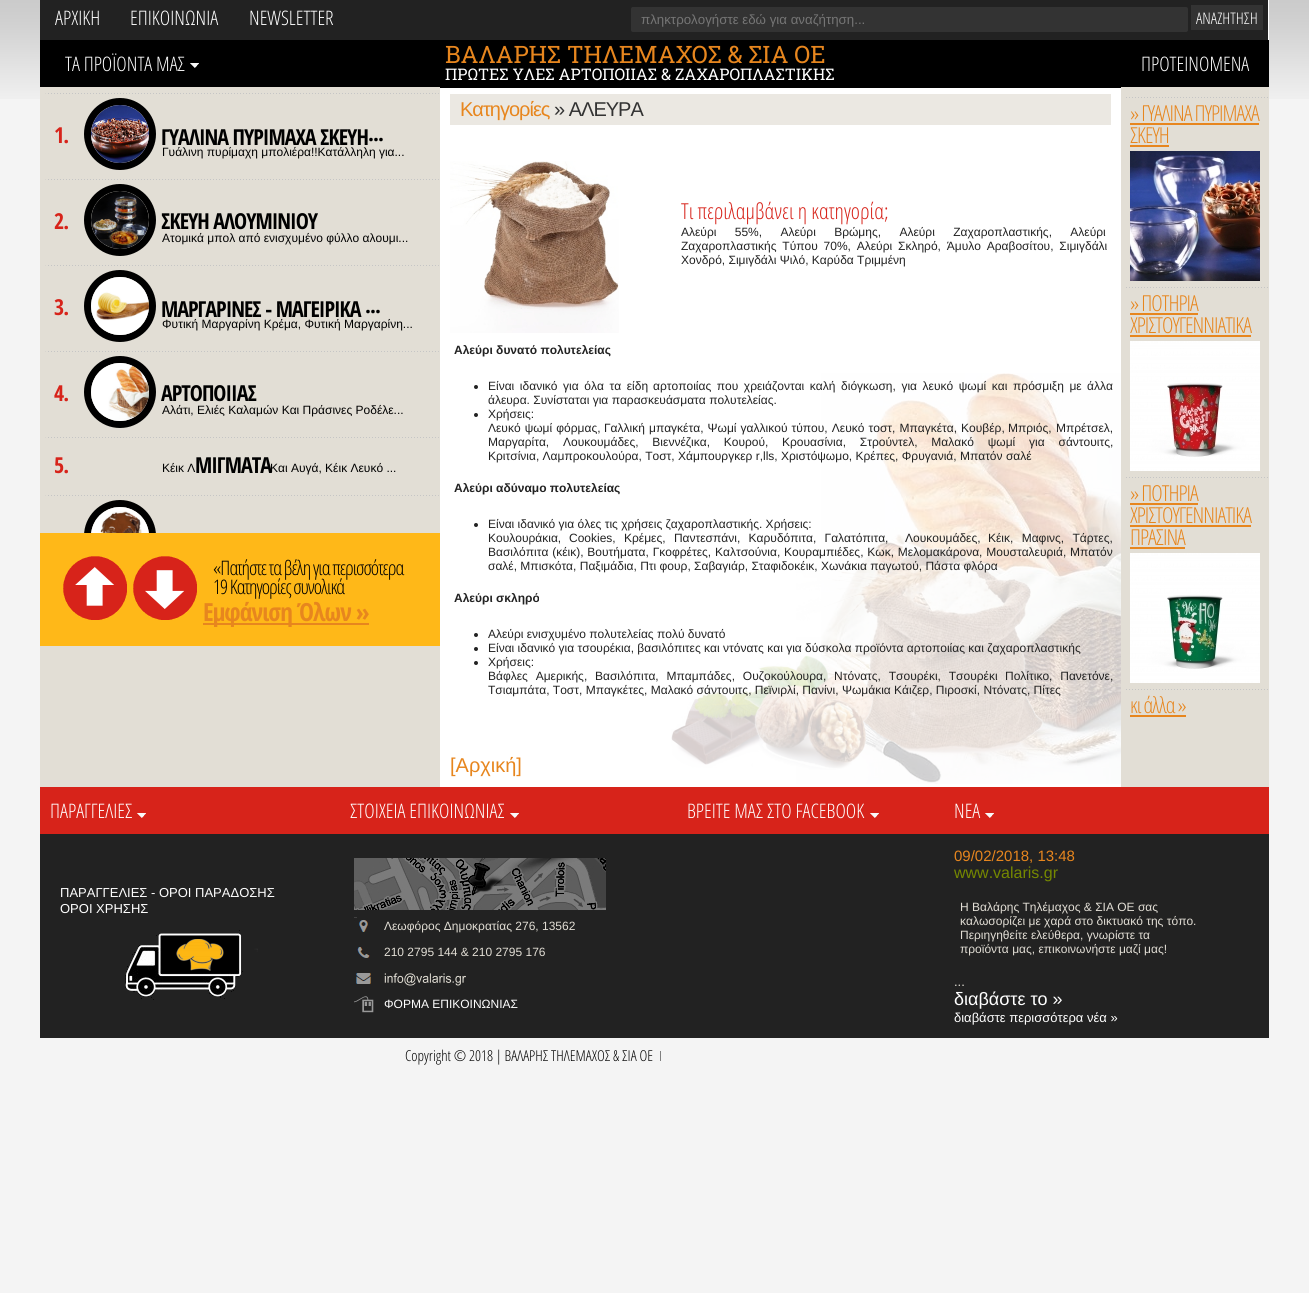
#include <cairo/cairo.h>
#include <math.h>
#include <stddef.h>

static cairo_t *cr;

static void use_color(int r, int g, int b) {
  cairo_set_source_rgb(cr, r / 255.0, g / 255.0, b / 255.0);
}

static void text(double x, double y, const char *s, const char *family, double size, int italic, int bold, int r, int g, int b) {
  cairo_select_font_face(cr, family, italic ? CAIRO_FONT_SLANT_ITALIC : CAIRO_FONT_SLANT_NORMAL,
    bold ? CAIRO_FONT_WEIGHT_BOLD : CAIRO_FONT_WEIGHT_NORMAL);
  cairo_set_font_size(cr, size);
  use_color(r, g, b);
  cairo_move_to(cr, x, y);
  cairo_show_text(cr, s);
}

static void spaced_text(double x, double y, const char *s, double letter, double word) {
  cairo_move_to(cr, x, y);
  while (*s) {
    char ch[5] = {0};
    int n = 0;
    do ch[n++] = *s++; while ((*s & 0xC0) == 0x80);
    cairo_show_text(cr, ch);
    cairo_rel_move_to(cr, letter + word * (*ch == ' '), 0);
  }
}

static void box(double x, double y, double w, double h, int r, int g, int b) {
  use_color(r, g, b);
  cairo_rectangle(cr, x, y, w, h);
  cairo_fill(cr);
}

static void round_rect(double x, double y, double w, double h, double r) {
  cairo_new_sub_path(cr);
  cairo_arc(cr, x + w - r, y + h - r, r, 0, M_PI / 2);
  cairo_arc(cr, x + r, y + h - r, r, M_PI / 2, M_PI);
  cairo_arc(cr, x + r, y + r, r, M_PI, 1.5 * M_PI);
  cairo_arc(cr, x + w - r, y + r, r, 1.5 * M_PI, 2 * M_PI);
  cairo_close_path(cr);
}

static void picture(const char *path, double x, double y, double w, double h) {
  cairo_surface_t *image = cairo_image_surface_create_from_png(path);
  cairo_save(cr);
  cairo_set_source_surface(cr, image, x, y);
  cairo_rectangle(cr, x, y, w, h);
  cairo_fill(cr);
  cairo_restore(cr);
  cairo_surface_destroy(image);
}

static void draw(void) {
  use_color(244, 244, 244);
  cairo_paint(cr);
  picture("img_01.png", 0, 0, 1309, 99);
  box(440, 0, 829, 787, 255, 255, 255);
  box(40, 0, 1228, 40, 34, 34, 34);
  use_color(51, 51, 51);
  round_rect(631, 7, 557, 25, 2);
  cairo_fill(cr);
  box(1191, 5, 72, 25, 51, 51, 51);
  box(40, 87, 400, 700, 226, 222, 213);
  box(40, 40, 400, 47, 0, 0, 0);
  picture("img_02.png", 190, 63, 9, 5);
  picture("img_03.png", 45, 93, 394, 1);
  cairo_arc(cr, 120, 134, 32.5, 0, 2 * M_PI);
  cairo_set_line_width(cr, 7);
  cairo_stroke(cr);
  picture("img_04.png", 91, 105, 58, 58);
  picture("img_03.png", 45, 179, 394, 1);
  cairo_arc(cr, 120, 220, 32.5, 0, 2 * M_PI);
  cairo_stroke(cr);
  picture("img_05.png", 91, 191, 58, 58);
  picture("img_03.png", 45, 265, 394, 1);
  cairo_arc(cr, 120, 306, 32.5, 0, 2 * M_PI);
  cairo_stroke(cr);
  picture("img_06.png", 91, 277, 58, 58);
  picture("img_03.png", 45, 351, 394, 1);
  cairo_arc(cr, 120, 392, 32.5, 0, 2 * M_PI);
  cairo_stroke(cr);
  picture("img_07.png", 91, 363, 58, 58);
  picture("img_03.png", 45, 437, 394, 1);
  picture("img_03.png", 45, 495, 394, 1);
  box(40, 533, 400, 113, 255, 184, 24);
  picture("img_09.png", 63, 556, 64, 64);
  picture("img_10.png", 133, 556, 64, 64);
  cairo_save(cr);
  cairo_rectangle(cr, 40, 93, 400, 440);
  cairo_clip(cr);
  cairo_arc(cr, 120, 536, 32.5, 0, 2 * M_PI);
  use_color(0, 0, 0);
  cairo_stroke(cr);
  cairo_restore(cr);
  picture("img_08.png", 91, 507, 58, 26);
  box(203, 623, 166, 2, 231, 134, 30);
  picture("img_11.png", 671, 373, 450, 411);
  box(440, 40, 681, 48, 0, 0, 0);
  box(450, 94, 661, 31, 235, 232, 226);
  picture("img_12.png", 450, 161, 169, 172);
  use_color(34, 34, 34);
  cairo_arc(cr, 476, 387, 2, 0, 2 * M_PI);
  cairo_fill(cr);
  cairo_arc(cr, 476, 415, 2, 0, 2 * M_PI);
  cairo_fill(cr);
  cairo_arc(cr, 476, 525, 2, 0, 2 * M_PI);
  cairo_fill(cr);
  cairo_arc(cr, 476, 635, 2, 0, 2 * M_PI);
  cairo_fill(cr);
  cairo_arc(cr, 476, 649, 2, 0, 2 * M_PI);
  cairo_fill(cr);
  cairo_arc(cr, 476, 663, 2, 0, 2 * M_PI);
  cairo_fill(cr);
  box(1121, 87, 148, 700, 226, 222, 213);
  box(1121, 40, 148, 47, 0, 0, 0);
  picture("img_13.png", 1126, 97, 142, 1);
  box(1130, 123, 129, 2, 231, 134, 30);
  box(1130, 145, 39, 2, 231, 134, 30);
  picture("img_14.png", 1130, 151, 130, 130);
  picture("img_13.png", 1126, 287, 142, 1);
  box(1130, 313, 68, 2, 231, 134, 30);
  box(1130, 335, 121, 2, 231, 134, 30);
  picture("img_15.png", 1130, 341, 130, 130);
  picture("img_13.png", 1126, 477, 142, 1);
  box(1130, 503, 68, 2, 231, 134, 30);
  box(1130, 525, 121, 2, 231, 134, 30);
  box(1130, 547, 55, 2, 231, 134, 30);
  picture("img_16.png", 1130, 553, 130, 130);
  picture("img_13.png", 1126, 689, 142, 1);
  box(1130, 715, 56, 2, 231, 134, 30);
  box(40, 787, 1229, 47, 215, 35, 26);
  picture("img_17.png", 137, 813, 9, 5);
  picture("img_17.png", 510, 813, 9, 5);
  picture("img_17.png", 870, 813, 9, 5);
  picture("img_17.png", 985, 813, 9, 5);
  box(40, 834, 1229, 204, 34, 34, 34);
  picture("img_18.png", 125, 930, 133, 70);
  picture("img_19.png", 354, 858, 252, 52);
  picture("img_20.png", 354, 917, 14, 15);
  picture("img_21.png", 357, 947, 13, 11);
  picture("img_22.png", 356, 973, 15, 11);
  picture("img_23.png", 384, 973, 82, 13);
  picture("img_24.png", 354, 996, 20, 17);
  box(660, 1051, 1, 10, 128, 128, 128);
  text(55, 25, "ΑΡΧΙΚΗ", "Open Sans Condensed Light", 20, 0, 0, 255, 255, 255);
  text(130, 25, "ΕΠΙΚΟΙΝΩΝΙΑ", "Open Sans Condensed Light", 20, 0, 0, 255, 255, 255);
  text(249, 25, "NEWSLETTER", "Open Sans Condensed Light", 20, 0, 0, 255, 255, 255);
  text(641, 24, "πληκτρολογήστε εδώ για αναζήτηση...", "Liberation Sans", 13.3, 0, 0, 117, 117, 117);
  text(1196, 24, "ΑΝΑΖΗΤΗΣΗ", "Open Sans Condensed Light", 16, 0, 0, 255, 255, 255);
  text(65, 71, "ΤΑ ΠΡΟΪΟΝΤΑ ΜΑΣ", "Open Sans Condensed Light", 20, 0, 0, 255, 255, 255);
  cairo_select_font_face(cr, "Open Sans Condensed", CAIRO_FONT_SLANT_NORMAL, CAIRO_FONT_WEIGHT_BOLD);
  cairo_set_font_size(cr, 22);
  use_color(215, 35, 26);
  spaced_text(54, 143, "1.", -1, 0);
  use_color(0, 0, 0);
  spaced_text(161, 145, "ΓΥΑΛΙΝΑ ΠΥΡΙMAXΑ ΣΚΕΥΗ", -1, 0);
  spaced_text(368, 141, "...", -1, 0);
  text(162, 156, "Γυάλινη πυρίμαχη μπολιέρα!!Κατάλληλη για...", "Liberation Sans", 12, 0, 0, 0, 0, 0);
  cairo_select_font_face(cr, "Open Sans Condensed", CAIRO_FONT_SLANT_NORMAL, CAIRO_FONT_WEIGHT_BOLD);
  cairo_set_font_size(cr, 22);
  use_color(215, 35, 26);
  spaced_text(54, 229, "2.", -1, 0);
  use_color(0, 0, 0);
  spaced_text(161, 229, "ΣΚΕΥΗ ΑΛΟΥΜΙΝΙΟΥ", -1, 0);
  text(162, 242, "Ατομικά μπολ από ενισχυμένο φύλλο αλουμι...", "Liberation Sans", 12, 0, 0, 0, 0, 0);
  cairo_select_font_face(cr, "Open Sans Condensed", CAIRO_FONT_SLANT_NORMAL, CAIRO_FONT_WEIGHT_BOLD);
  cairo_set_font_size(cr, 22);
  use_color(215, 35, 26);
  spaced_text(54, 315, "3.", -1, 0);
  use_color(0, 0, 0);
  spaced_text(161, 317, "ΜΑΡΓΑΡΙΝΕΣ - ΜΑΓΕΙΡΙΚΑ", -1, 0);
  spaced_text(365, 313, "...", -1, 0);
  text(162, 328, "Φυτική Μαργαρίνη Κρέμα, Φυτική Μαργαρίνη...", "Liberation Sans", 12, 0, 0, 0, 0, 0);
  cairo_select_font_face(cr, "Open Sans Condensed", CAIRO_FONT_SLANT_NORMAL, CAIRO_FONT_WEIGHT_BOLD);
  cairo_set_font_size(cr, 22);
  use_color(215, 35, 26);
  spaced_text(54, 401, "4.", -1, 0);
  use_color(0, 0, 0);
  spaced_text(161, 401, "ΑΡΤΟΠΟΙΙΑΣ", -1, 0);
  text(162, 414, "Αλάτι, Ελιές Καλαμών Και Πράσινες Ροδέλε...", "Liberation Sans", 12, 0, 0, 0, 0, 0);
  cairo_select_font_face(cr, "Open Sans Condensed", CAIRO_FONT_SLANT_NORMAL, CAIRO_FONT_WEIGHT_BOLD);
  cairo_set_font_size(cr, 22);
  use_color(215, 35, 26);
  spaced_text(54, 473, "5.", -1, 0);
  text(162, 472, "Κέικ Λ", "Liberation Sans", 12, 0, 0, 0, 0, 0);
  cairo_select_font_face(cr, "Open Sans Condensed", CAIRO_FONT_SLANT_NORMAL, CAIRO_FONT_WEIGHT_BOLD);
  cairo_set_font_size(cr, 22);
  spaced_text(195, 473, "ΜΙΓΜΑΤΑ", -1, 0);
  text(270, 472, "Και Αυγά, Κέικ Λευκό ...", "Liberation Sans", 12, 0, 0, 0, 0, 0);
  cairo_select_font_face(cr, "Open Sans Condensed Light", CAIRO_FONT_SLANT_NORMAL, CAIRO_FONT_WEIGHT_NORMAL);
  cairo_set_font_size(cr, 20);
  spaced_text(213, 575, "«Πατήστε τα βέλη για περισσότερα", -1, 0);
  spaced_text(213, 594, "19 Κατηγορίες συνολικά", -1, 0);
  cairo_select_font_face(cr, "Open Sans Condensed", CAIRO_FONT_SLANT_NORMAL, CAIRO_FONT_WEIGHT_BOLD);
  cairo_set_font_size(cr, 25);
  use_color(231, 134, 30);
  spaced_text(203, 621, "Εμφάνιση Όλων »", -1, 0);
  text(445, 63, "ΒΑΛΑΡΗΣ ΤΗΛΕΜΑΧΟΣ & ΣΙΑ ΟΕ", "Roboto Slab", 24, 0, 0, 231, 134, 30);
  text(445, 80, "ΠΡΩΤΕΣ ΥΛΕΣ ΑΡΤΟΠΟΙΙΑΣ & ΖΑΧΑΡΟΠΛΑΣΤΙΚΗΣ", "Roboto Slab", 16, 0, 0, 255, 255, 255);
  cairo_select_font_face(cr, "Liberation Sans", CAIRO_FONT_SLANT_NORMAL, CAIRO_FONT_WEIGHT_NORMAL);
  cairo_set_font_size(cr, 20);
  use_color(231, 134, 30);
  spaced_text(460, 116, "Κατηγορίες", -1, 0);
  use_color(51, 51, 51);
  spaced_text(554, 116, "» ΑΛΕΥΡΑ", -1, 0);
  text(681, 219, "Τι περιλαμβάνει η κατηγορία;", "Open Sans Condensed Light", 22, 0, 0, 215, 35, 26);
  cairo_select_font_face(cr, "Liberation Sans", CAIRO_FONT_SLANT_NORMAL, CAIRO_FONT_WEIGHT_NORMAL);
  cairo_set_font_size(cr, 12);
  use_color(34, 34, 34);
  spaced_text(681, 236, "Αλεύρι 55%, Αλεύρι Βρώμης, Αλεύρι Ζαχαροπλαστικής, Αλεύρι", 0, 15);
  spaced_text(681, 250, "Ζαχαροπλαστικής Τύπου 70%, Αλεύρι Σκληρό, Άμυλο Αραβοσίτου, Σιμιγδάλι", 0, 2.5);
  text(681, 264, "Χονδρό, Σιμιγδάλι Ψιλό, Καρύδα Τριμμένη", "Liberation Sans", 12, 0, 0, 34, 34, 34);
  text(454, 354, "Αλεύρι δυνατό πολυτελείας", "Liberation Sans", 12, 0, 1, 34, 34, 34);
  cairo_select_font_face(cr, "Liberation Sans", CAIRO_FONT_SLANT_NORMAL, CAIRO_FONT_WEIGHT_NORMAL);
  spaced_text(488, 390, "Είναι ιδανικό για όλα τα είδη", 0, 2.25);
  spaced_text(653, 390, "αρτοποιίας που χρειάζονται καλή διόγκωση, για λευκό ψωμί και πρόσμιξη με", 0, 2.25);
  text(1087, 390, "άλλα", "Liberation Sans", 12, 0, 0, 34, 34, 34);
  text(488, 404, "άλευρα. Συνίσταται για παρασκευάσματα πολυτελείας.", "Liberation Sans", 12, 0, 0, 34, 34, 34);
  text(488, 418, "Χρήσεις:", "Liberation Sans", 12, 0, 0, 34, 34, 34);
  spaced_text(488, 432, "Λευκό ψωμί φόρμας,", 0, 0.75);
  spaced_text(604, 432, "Γαλλική μπαγκέτα, Ψωμί γαλλικού τύπου, Λευκό τοστ, Μπαγκέτα, Κουβέρ,", 0, 0.75);
  spaced_text(1008, 432, "Μπριός, Μπρέτσελ,", 0, 1);
  spaced_text(488, 446, "Μαργαρίτα, Λουκουμάδες, Βιεννέζικα, Κουρού,", 0, 10.5);
  spaced_text(782, 446, "Κρουασίνια, Στρούντελ, Μαλακό ψωμί για σάντουιτς,", 0, 10.5);
  text(488, 460, "Κριτσίνια, Λαμπροκουλούρα, Τοστ, Χάμπουργκερ r,lls, Χριστόψωμο, Κρέπες, Φρυγανιά, Μπατόν σαλέ", "Liberation Sans", 12, 0, 0, 34, 34, 34);
  text(454, 492, "Αλεύρι αδύναμο πολυτελείας", "Liberation Sans", 12, 0, 1, 34, 34, 34);
  text(488, 528, "Είναι ιδανικό για όλες τις χρήσεις ζαχαροπλαστικής. Χρήσεις:", "Liberation Sans", 12, 0, 0, 34, 34, 34);
  text(488, 542, "Κουλουράκια,", "Liberation Sans", 12, 0, 0, 34, 34, 34);
  spaced_text(569, 542, "Cookies, Κρέμες, Παντεσπάνι, Καρυδόπιτα, Γαλατόπιτα,  Λουκουμάδες,", 0, 5);
  spaced_text(988, 542, "Κέικ, Μαφινς, Τάρτες,", 0, 5);
  spaced_text(488, 556, "Βασιλόπιτα (κέικ), Βουτήματα, Γκοφρέτες,", 0, 0.5);
  spaced_text(715, 556, "Καλτσούνια, Κουραμπιέδες, Κωκ, Μελομακάρονα, Μουσταλευριά, Μπατόν", 0, 0.5);
  text(488, 570, "σαλέ, Μπισκότα, Παξιμάδια, Πτι φουρ, Σαβαγιάρ, Σταφιδοκέικ, Χωνάκια παγωτού, Πάστα φλόρα", "Liberation Sans", 12, 0, 0, 34, 34, 34);
  text(454, 602, "Αλεύρι σκληρό", "Liberation Sans", 12, 0, 1, 34, 34, 34);
  text(488, 638, "Αλεύρι ενισχυμένο πολυτελείας πολύ δυνατό", "Liberation Sans", 12, 0, 0, 34, 34, 34);
  text(488, 652, "Είναι ιδανικό για τσουρέκια, βασιλόπιτες και ντόνατς και για δύσκολα προϊόντα αρτοποιίας και ζαχαροπλαστικής", "Liberation Sans", 12, 0, 0, 34, 34, 34);
  text(488, 666, "Χρήσεις:", "Liberation Sans", 12, 0, 0, 34, 34, 34);
  spaced_text(488, 680, "Βάφλες Αμερικής,", 0, 4.5);
  spaced_text(595, 680, "Βασιλόπιτα, Μπαμπάδες, Ουζοκούλουρα, Ντόνατς, Τσουρέκι, Τσουρέκι", 0, 4.5);
  spaced_text(1005, 680, "Πολίτικο, Πανετόνε,", 0, 4.5);
  text(488, 694, "Τσιαμπάτα, Τοστ, Μπαγκέτες, Μαλακό σάντουιτς, Πεϊνιρλί, Πανίνι, Ψωμάκια Κάιζερ, Πιροσκί, Ντόνατς, Πίτες", "Liberation Sans", 12, 0, 0, 34, 34, 34);
  text(450, 772, "[Αρχική]", "Liberation Sans", 20, 0, 0, 231, 134, 30);
  text(1141, 71, "ΠΡΟΤΕΙΝΟΜΕΝΑ", "Open Sans Condensed Light", 20, 0, 0, 255, 255, 255);
  cairo_set_font_size(cr, 22);
  use_color(231, 134, 30);
  spaced_text(1130, 121, "» ΓΥΑΛΙΝΑ ΠΥΡΙMAXΑ", -1, 0);
  spaced_text(1130, 143, "ΣΚΕΥΗ", -1, 0);
  spaced_text(1130, 311, "» ΠΟΤΗΡΙΑ", -1, 0);
  spaced_text(1130, 333, "ΧΡΙΣΤΟΥΓΕΝΝΙΑΤΙΚΑ", -1, 0);
  spaced_text(1130, 501, "» ΠΟΤΗΡΙΑ", -1, 0);
  spaced_text(1130, 523, "ΧΡΙΣΤΟΥΓΕΝΝΙΑΤΙΚΑ", -1, 0);
  spaced_text(1130, 545, "ΠΡΑΣΙΝΑ", -1, 0);
  spaced_text(1130, 713, "κι άλλα »", -1, 0);
  text(50, 818, "ΠΑΡΑΓΓΕΛΙΕΣ", "Open Sans Condensed Light", 20, 0, 0, 255, 255, 255);
  text(350, 818, "ΣΤΟΙΧΕΙΑ ΕΠΙΚΟΙΝΩΝΙΑΣ", "Open Sans Condensed Light", 20, 0, 0, 255, 255, 255);
  text(687, 818, "ΒΡΕΙΤΕ ΜΑΣ ΣΤΟ FACEBOOK", "Open Sans Condensed Light", 20, 0, 0, 255, 255, 255);
  text(954, 818, "ΝΕΑ", "Open Sans Condensed Light", 20, 0, 0, 255, 255, 255);
  text(60, 897, "ΠΑΡΑΓΓΕΛΙΕΣ - ΟΡΟΙ ΠΑΡΑΔΟΣΗΣ", "Liberation Sans", 13, 0, 0, 255, 255, 255);
  text(60, 913, "ΟΡΟΙ ΧΡΗΣΗΣ", "Liberation Sans", 13, 0, 0, 255, 255, 255);
  text(954, 861, "09/02/2018, 13:48", "Liberation Sans", 15, 0, 0, 231, 134, 30);
  text(954, 878, "www.valaris.gr", "Liberation Sans", 16, 0, 0, 117, 136, 0);
  text(960, 911, "Η Βαλάρης Τηλέμαχος & ΣΙΑ ΟΕ σας", "Liberation Sans", 12, 0, 0, 226, 222, 213);
  text(960, 925, "καλωσορίζει με χαρά στο δικτυακό της τόπο.", "Liberation Sans", 12, 0, 0, 226, 222, 213);
  text(960, 939, "Περιηγηθείτε ελεύθερα, γνωρίστε τα", "Liberation Sans", 12, 0, 0, 226, 222, 213);
  text(960, 953, "προϊόντα μας, επικοινωνήστε μαζί μας!", "Liberation Sans", 12, 0, 0, 226, 222, 213);
  text(954, 986, "...", "Liberation Sans", 13, 0, 0, 226, 222, 213);
  text(954, 1005, "διαβάστε το »", "Liberation Sans", 18, 0, 0, 255, 255, 255);
  text(954, 1022, "διαβάστε περισσότερα νέα »", "Liberation Sans", 13, 0, 0, 255, 255, 255);
  text(384, 930, "Λεωφόρος Δημοκρατίας 276, 13562", "Liberation Sans", 12, 0, 0, 226, 222, 213);
  text(384, 956, "210 2795 144 & 210 2795 176", "Liberation Sans", 12, 0, 0, 226, 222, 213);
  text(384, 1008, "ΦΟΡΜΑ ΕΠΙΚΟΙΝΩΝΙΑΣ", "Liberation Sans", 12, 0, 0, 255, 255, 255);
  text(405, 1061, "Copyright © 2018 | ΒΑΛΑΡΗΣ ΤΗΛΕΜΑΧΟΣ & ΣΙΑ ΟΕ", "Open Sans Condensed Light", 15, 0, 0, 0, 0, 0);
}

int main(void) {
  cairo_surface_t *surface = cairo_image_surface_create(CAIRO_FORMAT_RGB24, 1309, 1293);
  cr = cairo_create(surface);
  cairo_font_options_t *options = cairo_font_options_create();
  cairo_font_options_set_hint_metrics(options, CAIRO_HINT_METRICS_OFF);
  cairo_font_options_set_hint_style(options, CAIRO_HINT_STYLE_NONE);
  cairo_set_font_options(cr, options);
  cairo_set_miter_limit(cr, 4);
  draw();
  cairo_surface_write_to_png(surface, "out.png");
  cairo_font_options_destroy(options);
  cairo_destroy(cr);
  cairo_surface_destroy(surface);
  return 0;
}
